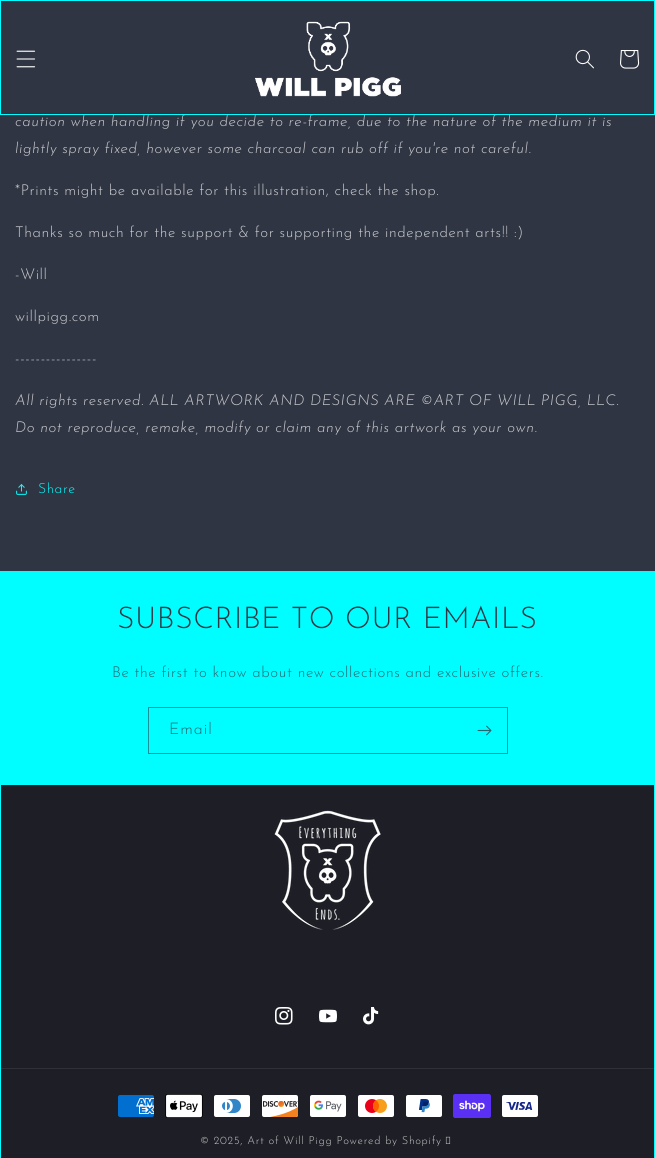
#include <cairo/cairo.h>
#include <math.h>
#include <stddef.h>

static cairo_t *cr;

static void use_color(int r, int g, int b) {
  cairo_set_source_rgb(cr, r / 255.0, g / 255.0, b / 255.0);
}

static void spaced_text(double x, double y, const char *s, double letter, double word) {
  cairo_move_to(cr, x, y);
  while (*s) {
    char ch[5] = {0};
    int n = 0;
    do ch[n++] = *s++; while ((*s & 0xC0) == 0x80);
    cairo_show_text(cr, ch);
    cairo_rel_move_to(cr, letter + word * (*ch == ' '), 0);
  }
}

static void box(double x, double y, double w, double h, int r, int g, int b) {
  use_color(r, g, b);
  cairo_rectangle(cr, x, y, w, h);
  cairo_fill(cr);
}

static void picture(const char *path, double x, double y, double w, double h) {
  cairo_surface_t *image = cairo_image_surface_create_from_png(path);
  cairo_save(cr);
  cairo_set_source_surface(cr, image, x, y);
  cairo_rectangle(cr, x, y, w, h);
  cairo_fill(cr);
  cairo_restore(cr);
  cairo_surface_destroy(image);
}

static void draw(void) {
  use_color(48, 53, 67);
  cairo_paint(cr);
  picture("img_05.png", 16, 484, 11, 11);
  box(0, 571, 655, 213, 0, 253, 255);
  cairo_rectangle(cr, 148.5, 707.5, 359, 46);
  use_color(29, 144, 152);
  cairo_set_line_width(cr, 1);
  cairo_stroke(cr);
  picture("img_06.png", 477, 725, 15, 11);
  cairo_rectangle(cr, 0.5, 784.5, 654, 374);
  use_color(0, 253, 255);
  cairo_stroke(cr);
  box(1, 785, 653, 373, 30, 31, 38);
  picture("img_07.png", 274, 810, 107, 120);
  picture("img_08.png", 275, 1007, 18, 18);
  picture("img_09.png", 319, 1009, 18, 14);
  picture("img_10.png", 363, 1007, 16, 18);
  box(1, 1068, 653, 1, 48, 49, 55);
  picture("img_11.png", 118, 1095, 36, 22);
  picture("img_12.png", 165, 1094, 38, 24);
  picture("img_13.png", 214, 1095, 36, 22);
  picture("img_14.png", 262, 1095, 36, 22);
  picture("img_15.png", 310, 1095, 36, 22);
  picture("img_16.png", 358, 1095, 36, 22);
  picture("img_17.png", 406, 1095, 36, 22);
  picture("img_18.png", 453, 1094, 38, 24);
  picture("img_19.png", 502, 1095, 36, 22);
  picture("img_20.png", 445, 1136, 6, 8);
  cairo_select_font_face(cr, "Josefin Sans Light", CAIRO_FONT_SLANT_ITALIC, CAIRO_FONT_WEIGHT_NORMAL);
  cairo_set_font_size(cr, 15);
  use_color(203, 205, 208);
  spaced_text(15, 126, "caution when handling if you decide to re-frame, due to the nature of the medium it is", 0.6, 0);
  cairo_rectangle(cr, 0.5, 0.5, 654, 114);
  use_color(0, 253, 255);
  cairo_stroke(cr);
  picture("img_04.png", 620, 50, 20, 19);
  picture("img_03.png", 575, 49, 19, 20);
  picture("img_01.png", 16, 50, 20, 18);
  picture("img_02.png", 255, 21, 146, 76);
  use_color(203, 205, 208);
  spaced_text(15, 153, "lightly spray fixed, however some charcoal can rub off if you're not careful.", 0.6, 0);
  cairo_select_font_face(cr, "Josefin Sans Light", CAIRO_FONT_SLANT_NORMAL, CAIRO_FONT_WEIGHT_NORMAL);
  spaced_text(15, 195, "*Prints might be available for this illustration, check the shop.", 0.6, 0);
  spaced_text(15, 237, "Thanks so much for the support & for supporting the independent arts!! :)", 0.6, 0);
  spaced_text(15, 279, "-Will", 0.6, 0);
  spaced_text(15, 321, "willpigg.com", 0.6, 0);
  spaced_text(15, 363, "----------------", 0.6, 0);
  cairo_select_font_face(cr, "Josefin Sans Light", CAIRO_FONT_SLANT_ITALIC, CAIRO_FONT_WEIGHT_NORMAL);
  spaced_text(15, 405, "All rights reserved. ALL ARTWORK AND DESIGNS ARE ©ART OF WILL PIGG, LLC.", 0.6, 0);
  spaced_text(15, 432, "Do not reproduce, remake, modify or claim any of this artwork as your own.", 0.6, 0);
  cairo_select_font_face(cr, "Josefin Sans Light", CAIRO_FONT_SLANT_NORMAL, CAIRO_FONT_WEIGHT_NORMAL);
  cairo_set_font_size(cr, 14);
  use_color(0, 253, 255);
  spaced_text(38, 493, "Share", 0.6, 0);
  cairo_set_font_size(cr, 30);
  use_color(52, 54, 67);
  spaced_text(117, 628, "SUBSCRIBE TO OUR EMAILS", 0.6, 0);
  cairo_set_font_size(cr, 15);
  use_color(39, 104, 114);
  spaced_text(112, 677, "Be the first to know about new collections and exclusive offers.", 0.6, 0);
  cairo_set_font_size(cr, 16);
  spaced_text(169, 734, "Email", 1, 0);
  cairo_set_font_size(cr, 11);
  use_color(199, 199, 201);
  spaced_text(200, 1144, "© 2025, Art of Will Pigg Powered by Shopify", 0.7, 0);
}

int main(void) {
  cairo_surface_t *surface = cairo_image_surface_create(CAIRO_FORMAT_RGB24, 655, 1158);
  cr = cairo_create(surface);
  cairo_font_options_t *options = cairo_font_options_create();
  cairo_font_options_set_hint_metrics(options, CAIRO_HINT_METRICS_OFF);
  cairo_font_options_set_hint_style(options, CAIRO_HINT_STYLE_NONE);
  cairo_set_font_options(cr, options);
  cairo_set_miter_limit(cr, 4);
  draw();
  cairo_surface_write_to_png(surface, "out.png");
  cairo_font_options_destroy(options);
  cairo_destroy(cr);
  cairo_surface_destroy(surface);
  return 0;
}
